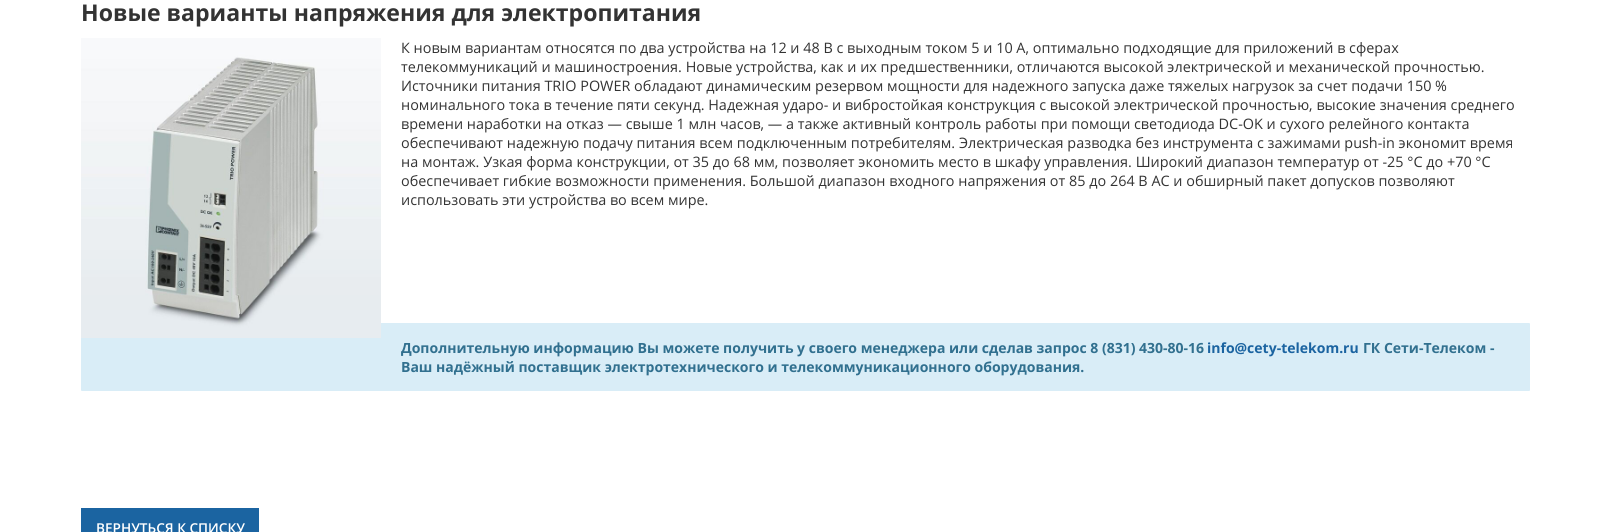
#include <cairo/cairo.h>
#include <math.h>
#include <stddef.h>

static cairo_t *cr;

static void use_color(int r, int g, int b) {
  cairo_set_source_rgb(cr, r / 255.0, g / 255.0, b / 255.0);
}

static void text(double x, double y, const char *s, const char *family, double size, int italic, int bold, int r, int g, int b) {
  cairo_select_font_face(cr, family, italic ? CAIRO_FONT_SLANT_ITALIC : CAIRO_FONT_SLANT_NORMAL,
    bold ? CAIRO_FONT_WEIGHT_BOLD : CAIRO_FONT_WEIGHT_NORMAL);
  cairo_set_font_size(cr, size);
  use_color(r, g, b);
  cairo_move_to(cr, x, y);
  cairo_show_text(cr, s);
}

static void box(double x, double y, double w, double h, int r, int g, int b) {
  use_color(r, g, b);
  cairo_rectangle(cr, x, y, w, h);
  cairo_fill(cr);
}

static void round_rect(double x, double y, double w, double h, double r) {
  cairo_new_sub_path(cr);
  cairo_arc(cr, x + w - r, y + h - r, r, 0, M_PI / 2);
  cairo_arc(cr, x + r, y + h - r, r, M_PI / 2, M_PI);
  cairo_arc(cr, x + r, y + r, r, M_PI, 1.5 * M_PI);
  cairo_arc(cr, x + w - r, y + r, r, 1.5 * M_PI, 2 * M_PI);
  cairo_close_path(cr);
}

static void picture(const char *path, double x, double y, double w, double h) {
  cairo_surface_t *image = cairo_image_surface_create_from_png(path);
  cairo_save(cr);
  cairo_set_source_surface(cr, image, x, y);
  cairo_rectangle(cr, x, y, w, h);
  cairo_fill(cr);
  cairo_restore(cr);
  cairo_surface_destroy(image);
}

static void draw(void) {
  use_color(255, 255, 255);
  cairo_paint(cr);
  use_color(217, 237, 247);
  round_rect(81, 323, 1449, 68, 1);
  cairo_fill(cr);
  picture("img_01.png", 81, 38, 300, 300);
  box(81, 508, 178, 24, 27, 100, 161);
  text(81, 21, "Новые варианты напряжения для электропитания", "Open Sans", 23.05, 0, 1, 51, 51, 51);
  text(401, 53, "К новым вариантам относятся по два устройства на 12 и 48 В с выходным током 5 и 10 A, оптимально подходящие для приложений в сферах", "Open Sans", 14.4, 0, 0, 51, 51, 51);
  text(401, 72, "телекоммуникаций и машиностроения. Новые устройства, как и их предшественники, отличаются высокой электрической и механической прочностью.", "Open Sans", 14.4, 0, 0, 51, 51, 51);
  text(401, 91, "Источники питания TRIO POWER обладают динамическим резервом мощности для надежного запуска даже тяжелых нагрузок за счет подачи 150 %", "Open Sans", 14.4, 0, 0, 51, 51, 51);
  text(401, 110, "номинального тока в течение пяти секунд. Надежная ударо- и вибростойкая конструкция с высокой электрической прочностью, высокие значения среднего", "Open Sans", 14.4, 0, 0, 51, 51, 51);
  text(401, 129, "времени наработки на отказ — свыше 1 млн часов, — а также активный контроль работы при помощи светодиода DC-OK и сухого релейного контакта", "Open Sans", 14.4, 0, 0, 51, 51, 51);
  text(401, 148, "обеспечивают надежную подачу питания всем подключенным потребителям. Электрическая разводка без инструмента с зажимами push-in экономит время", "Open Sans", 14.4, 0, 0, 51, 51, 51);
  text(401, 167, "на монтаж. Узкая форма конструкции, от 35 до 68 мм, позволяет экономить место в шкафу управления. Широкий диапазон температур от -25 °C до +70 °C", "Open Sans", 14.4, 0, 0, 51, 51, 51);
  text(401, 186, "обеспечивает гибкие возможности применения. Большой диапазон входного напряжения от 85 до 264 В АС и обширный пакет допусков позволяют", "Open Sans", 14.4, 0, 0, 51, 51, 51);
  text(401, 205, "использовать эти устройства во всем мире.", "Open Sans", 14.4, 0, 0, 51, 51, 51);
  text(401, 353, "Дополнительную информацию Вы можете получить у своего менеджера или сделав запрос 8 (831) 430-80-16", "Open Sans", 14, 0, 1, 49, 112, 143);
  text(1207, 353, "info@cety-telekom.ru", "Open Sans", 14, 0, 1, 27, 100, 161);
  text(1363, 353, "ГК Сети-Телеком -", "Open Sans", 14, 0, 1, 49, 112, 143);
  text(401, 372, "Ваш надёжный поставщик электротехнического и телекоммуникационного оборудования.", "Open Sans", 14, 0, 1, 49, 112, 143);
  text(96, 533, "ВЕРНУТЬСЯ К СПИСКУ", "Open Sans SemiBold", 13.6, 0, 0, 255, 255, 255);
}

int main(void) {
  cairo_surface_t *surface = cairo_image_surface_create(CAIRO_FORMAT_RGB24, 1610, 532);
  cr = cairo_create(surface);
  cairo_font_options_t *options = cairo_font_options_create();
  cairo_font_options_set_hint_metrics(options, CAIRO_HINT_METRICS_OFF);
  cairo_font_options_set_hint_style(options, CAIRO_HINT_STYLE_NONE);
  cairo_set_font_options(cr, options);
  cairo_set_miter_limit(cr, 4);
  draw();
  cairo_surface_write_to_png(surface, "out.png");
  cairo_font_options_destroy(options);
  cairo_destroy(cr);
  cairo_surface_destroy(surface);
  return 0;
}
